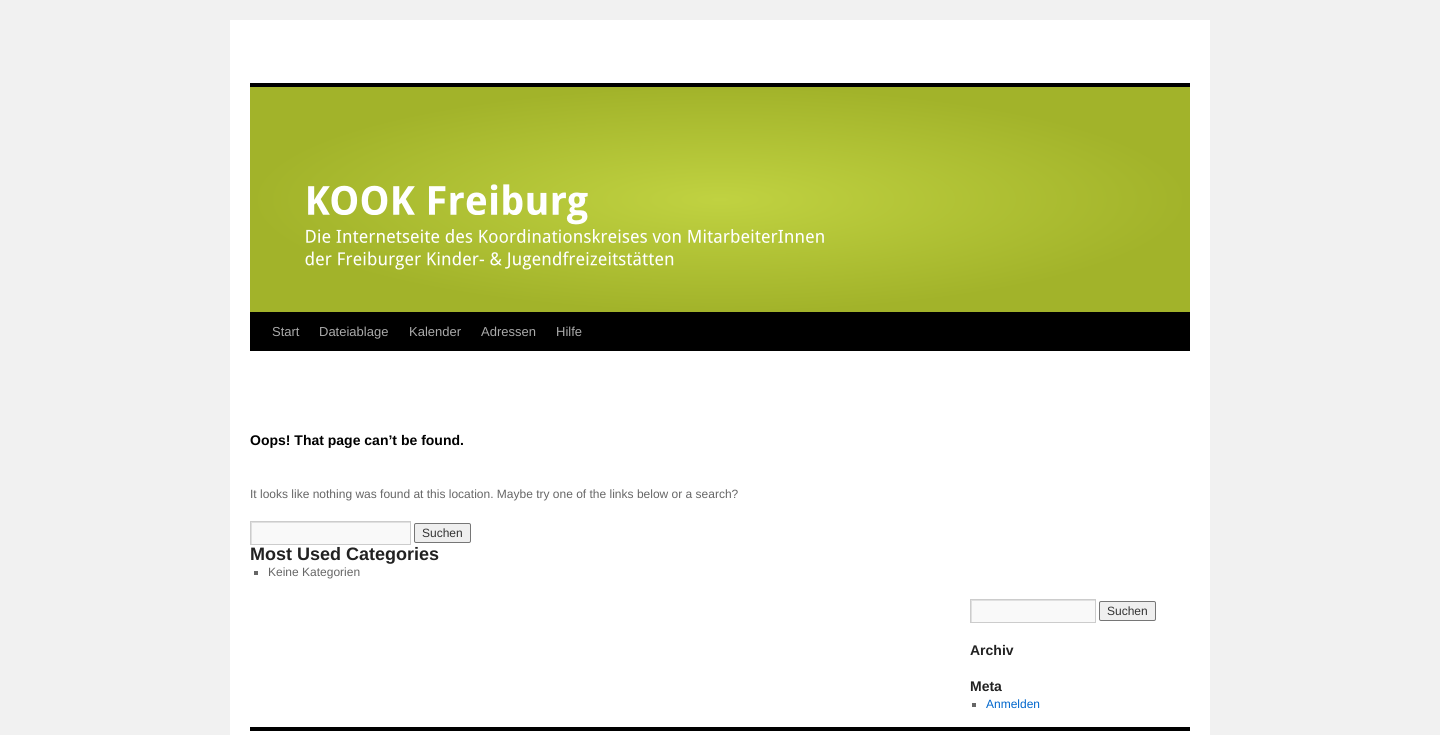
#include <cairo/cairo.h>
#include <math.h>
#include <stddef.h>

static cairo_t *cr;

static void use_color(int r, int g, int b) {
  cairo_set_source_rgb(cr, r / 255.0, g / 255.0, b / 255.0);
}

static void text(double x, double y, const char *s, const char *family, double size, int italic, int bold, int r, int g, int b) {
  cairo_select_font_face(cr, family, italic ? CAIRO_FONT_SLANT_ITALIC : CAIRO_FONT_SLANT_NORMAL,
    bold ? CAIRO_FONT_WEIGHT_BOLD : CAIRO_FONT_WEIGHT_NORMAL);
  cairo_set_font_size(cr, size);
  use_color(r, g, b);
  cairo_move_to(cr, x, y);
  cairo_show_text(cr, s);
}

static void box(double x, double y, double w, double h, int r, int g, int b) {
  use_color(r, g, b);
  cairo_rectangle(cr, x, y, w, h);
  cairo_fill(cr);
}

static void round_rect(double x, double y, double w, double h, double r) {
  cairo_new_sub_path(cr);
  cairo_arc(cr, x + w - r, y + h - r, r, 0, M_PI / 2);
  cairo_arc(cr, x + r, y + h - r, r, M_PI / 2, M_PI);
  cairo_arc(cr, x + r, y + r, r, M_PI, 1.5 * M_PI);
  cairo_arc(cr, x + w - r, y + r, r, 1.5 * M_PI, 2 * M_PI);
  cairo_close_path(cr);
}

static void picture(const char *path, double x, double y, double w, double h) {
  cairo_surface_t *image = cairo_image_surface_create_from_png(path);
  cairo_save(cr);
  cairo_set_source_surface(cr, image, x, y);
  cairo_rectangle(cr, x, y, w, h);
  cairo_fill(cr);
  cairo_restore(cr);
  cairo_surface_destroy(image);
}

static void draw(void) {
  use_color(241, 241, 241);
  cairo_paint(cr);
  box(230, 20, 980, 715, 255, 255, 255);
  box(250, 83, 940, 4, 0, 0, 0);
  box(250, 312, 940, 39, 0, 0, 0);
  picture("img_01.png", 250, 87, 940, 225);
  box(252, 523, 158, 21, 249, 249, 249);
  cairo_save(cr);
  cairo_rectangle(cr, 251, 522, 159, 22);
  cairo_clip(cr);
  use_color(224, 224, 224);
  cairo_set_fill_rule(cr, CAIRO_FILL_RULE_EVEN_ODD);
  cairo_new_path(cr);
  cairo_move_to(cr, 152, 423);
  cairo_line_to(cr, 509, 423);
  cairo_line_to(cr, 509, 643);
  cairo_line_to(cr, 152, 643);
  cairo_close_path(cr);
  cairo_move_to(cr, 252, 523);
  cairo_line_to(cr, 411, 523);
  cairo_line_to(cr, 411, 545);
  cairo_line_to(cr, 252, 545);
  cairo_close_path(cr);
  cairo_fill(cr);
  cairo_restore(cr);
  cairo_rectangle(cr, 250.5, 521.5, 160, 23);
  use_color(204, 204, 204);
  cairo_set_line_width(cr, 1);
  cairo_stroke(cr);
  use_color(239, 239, 239);
  round_rect(414.5, 523.5, 56, 19, 1.5);
  cairo_fill_preserve(cr);
  use_color(118, 118, 118);
  cairo_stroke(cr);
  box(254, 571, 4, 4, 102, 102, 102);
  box(972, 601, 123, 21, 249, 249, 249);
  cairo_save(cr);
  cairo_rectangle(cr, 971, 600, 124, 22);
  cairo_clip(cr);
  use_color(224, 224, 224);
  cairo_set_fill_rule(cr, CAIRO_FILL_RULE_EVEN_ODD);
  cairo_new_path(cr);
  cairo_move_to(cr, 872, 501);
  cairo_line_to(cr, 1194, 501);
  cairo_line_to(cr, 1194, 721);
  cairo_line_to(cr, 872, 721);
  cairo_close_path(cr);
  cairo_move_to(cr, 972, 601);
  cairo_line_to(cr, 1096, 601);
  cairo_line_to(cr, 1096, 623);
  cairo_line_to(cr, 972, 623);
  cairo_close_path(cr);
  cairo_fill(cr);
  cairo_restore(cr);
  cairo_rectangle(cr, 970.5, 599.5, 125, 23);
  use_color(204, 204, 204);
  cairo_stroke(cr);
  use_color(239, 239, 239);
  round_rect(1099.5, 601.5, 56, 19, 1.5);
  cairo_fill_preserve(cr);
  use_color(118, 118, 118);
  cairo_stroke(cr);
  box(972, 703, 4, 4, 102, 102, 102);
  box(250, 727, 940, 4, 0, 0, 0);
  text(272, 336, "Start", "Liberation Sans", 13, 0, 0, 170, 170, 170);
  text(319, 336, "Dateiablage", "Liberation Sans", 13, 0, 0, 170, 170, 170);
  text(409, 336, "Kalender", "Liberation Sans", 13, 0, 0, 170, 170, 170);
  text(481, 336, "Adressen", "Liberation Sans", 13, 0, 0, 170, 170, 170);
  text(556, 336, "Hilfe", "Liberation Sans", 13, 0, 0, 170, 170, 170);
  text(250, 445, "Oops! That page can’t be found.", "Liberation Sans", 14, 0, 1, 0, 0, 0);
  text(250, 498, "It looks like nothing was found at this location. Maybe try one of the links below or a search?", "Liberation Sans", 12, 0, 0, 102, 102, 102);
  text(422, 537, "Suchen", "Liberation Sans", 12, 0, 0, 51, 51, 51);
  text(250, 560, "Most Used Categories", "Liberation Sans", 18, 0, 1, 34, 34, 34);
  text(268, 576, "Keine Kategorien", "Liberation Sans", 12, 0, 0, 102, 102, 102);
  text(1107, 615, "Suchen", "Liberation Sans", 12, 0, 0, 51, 51, 51);
  text(970, 655, "Archiv", "Liberation Sans", 14, 0, 1, 34, 34, 34);
  text(970, 691, "Meta", "Liberation Sans", 14, 0, 1, 34, 34, 34);
  text(986, 708, "Anmelden", "Liberation Sans", 12, 0, 0, 0, 102, 204);
}

int main(void) {
  cairo_surface_t *surface = cairo_image_surface_create(CAIRO_FORMAT_RGB24, 1440, 735);
  cr = cairo_create(surface);
  cairo_font_options_t *options = cairo_font_options_create();
  cairo_font_options_set_hint_metrics(options, CAIRO_HINT_METRICS_OFF);
  cairo_font_options_set_hint_style(options, CAIRO_HINT_STYLE_NONE);
  cairo_set_font_options(cr, options);
  cairo_set_miter_limit(cr, 4);
  draw();
  cairo_surface_write_to_png(surface, "out.png");
  cairo_font_options_destroy(options);
  cairo_destroy(cr);
  cairo_surface_destroy(surface);
  return 0;
}
